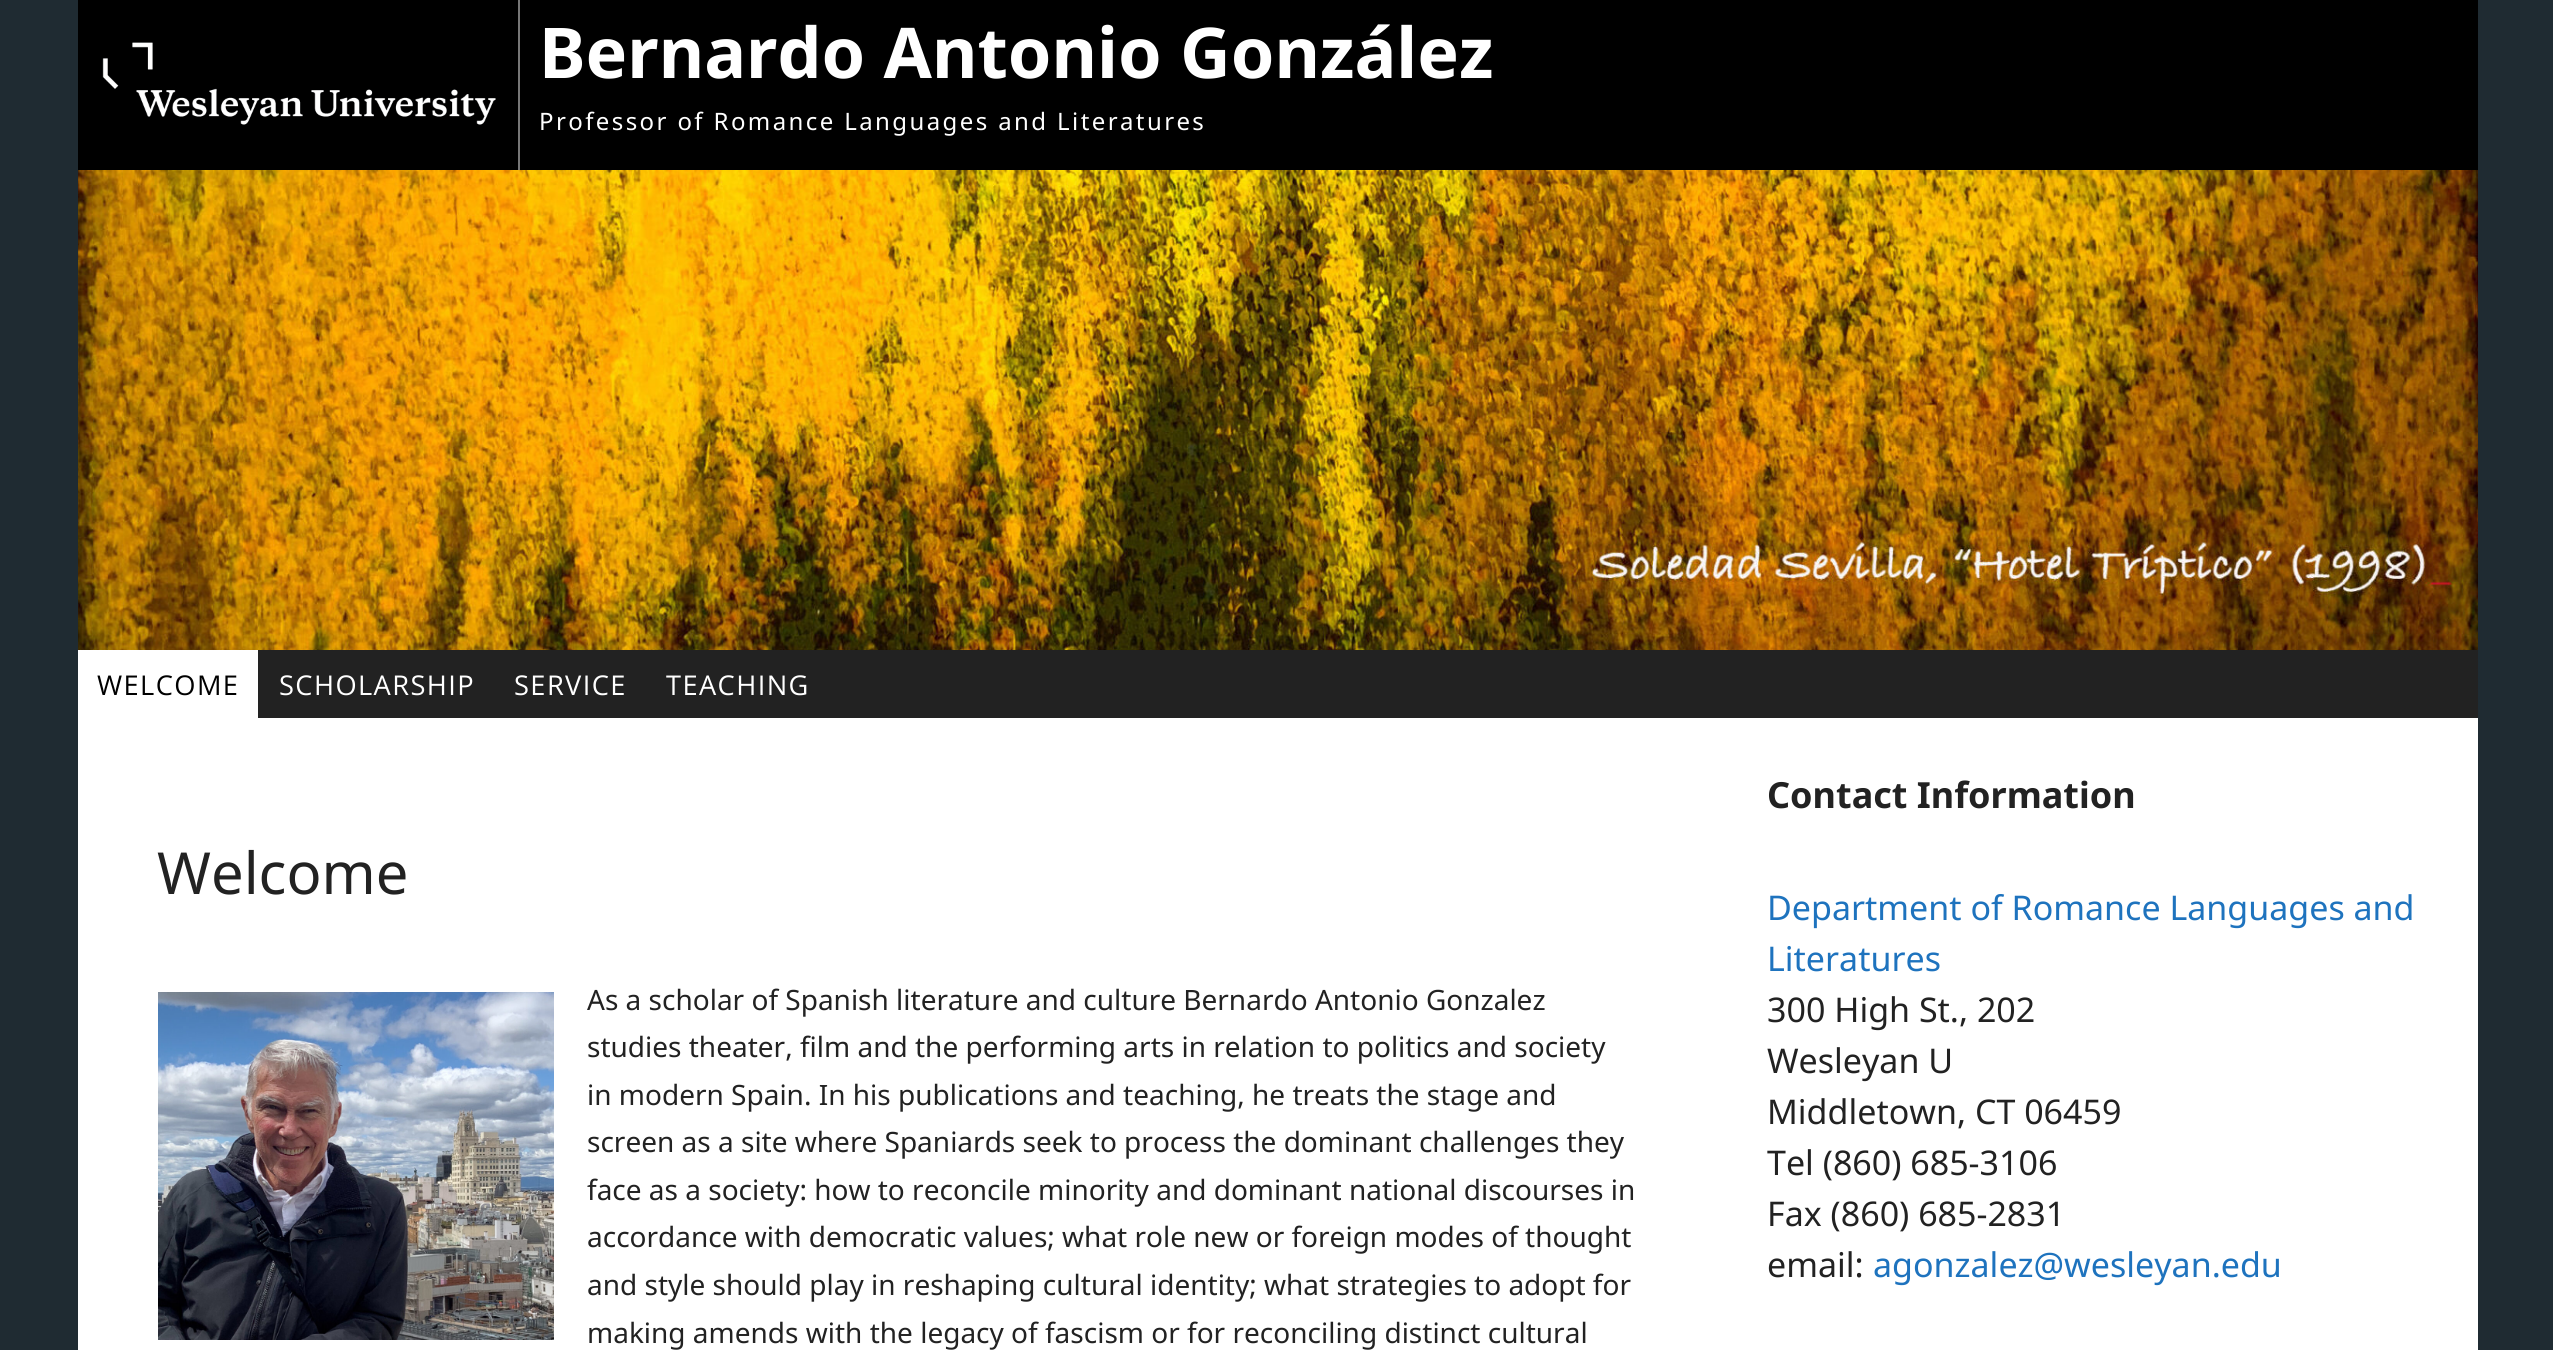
#include <cairo/cairo.h>
#include <math.h>
#include <stddef.h>

static cairo_t *cr;

static void use_color(int r, int g, int b) {
  cairo_set_source_rgb(cr, r / 255.0, g / 255.0, b / 255.0);
}

static void text(double x, double y, const char *s, const char *family, double size, int italic, int bold, int r, int g, int b) {
  cairo_select_font_face(cr, family, italic ? CAIRO_FONT_SLANT_ITALIC : CAIRO_FONT_SLANT_NORMAL,
    bold ? CAIRO_FONT_WEIGHT_BOLD : CAIRO_FONT_WEIGHT_NORMAL);
  cairo_set_font_size(cr, size);
  use_color(r, g, b);
  cairo_move_to(cr, x, y);
  cairo_show_text(cr, s);
}

static void spaced_text(double x, double y, const char *s, double letter, double word) {
  cairo_move_to(cr, x, y);
  while (*s) {
    char ch[5] = {0};
    int n = 0;
    do ch[n++] = *s++; while ((*s & 0xC0) == 0x80);
    cairo_show_text(cr, ch);
    cairo_rel_move_to(cr, letter + word * (*ch == ' '), 0);
  }
}

static void box(double x, double y, double w, double h, int r, int g, int b) {
  use_color(r, g, b);
  cairo_rectangle(cr, x, y, w, h);
  cairo_fill(cr);
}

static void picture(const char *path, double x, double y, double w, double h) {
  cairo_surface_t *image = cairo_image_surface_create_from_png(path);
  cairo_save(cr);
  cairo_set_source_surface(cr, image, x, y);
  cairo_rectangle(cr, x, y, w, h);
  cairo_fill(cr);
  cairo_restore(cr);
  cairo_surface_destroy(image);
}

static void draw(void) {
  use_color(31, 43, 50);
  cairo_paint(cr);
  box(78, 0, 2400, 170, 0, 0, 0);
  box(518, 0, 2, 170, 119, 119, 119);
  picture("img_01.png", 78, 170, 2400, 480);
  box(258, 650, 2220, 68, 34, 34, 34);
  box(78, 650, 180, 68, 255, 255, 255);
  picture("img_02.png", 102, 42, 394, 83);
  box(78, 718, 2400, 632, 255, 255, 255);
  picture("img_03.png", 158, 992, 396, 348);
  text(539, 78, "Bernardo Antonio González", "Noto Sans", 70, 0, 1, 255, 255, 255);
  cairo_select_font_face(cr, "Noto Sans", CAIRO_FONT_SLANT_NORMAL, CAIRO_FONT_WEIGHT_NORMAL);
  cairo_set_font_size(cr, 24);
  spaced_text(539, 130, "Professor of Romance Languages and Literatures", 2.4, 0);
  cairo_select_font_face(cr, "Open Sans", CAIRO_FONT_SLANT_NORMAL, CAIRO_FONT_WEIGHT_NORMAL);
  cairo_set_font_size(cr, 27.25);
  use_color(0, 0, 0);
  spaced_text(97, 695, "WELCOME", 1.4, 0);
  use_color(255, 255, 255);
  spaced_text(279, 695, "SCHOLARSHIP", 1.4, 0);
  spaced_text(514, 695, "SERVICE", 1.4, 0);
  spaced_text(666, 695, "TEACHING", 1.4, 0);
  text(157, 894, "Welcome", "Noto Sans", 58, 0, 0, 34, 34, 34);
  text(587, 1010, "As a scholar of Spanish literature and culture Bernardo Antonio Gonzalez", "Noto Sans", 28, 0, 0, 34, 34, 34);
  text(587, 1057, "studies theater, film and the performing arts in relation to politics and society", "Noto Sans", 28, 0, 0, 34, 34, 34);
  text(587, 1105, "in modern Spain. In his publications and teaching, he treats the stage and", "Noto Sans", 28, 0, 0, 34, 34, 34);
  text(587, 1152, "screen as a site where Spaniards seek to process the dominant challenges they", "Noto Sans", 28, 0, 0, 34, 34, 34);
  text(587, 1200, "face as a society: how to reconcile minority and dominant national discourses in", "Noto Sans", 28, 0, 0, 34, 34, 34);
  text(587, 1247, "accordance with democratic values; what role new or foreign modes of thought", "Noto Sans", 28, 0, 0, 34, 34, 34);
  text(587, 1295, "and style should play in reshaping cultural identity; what strategies to adopt for", "Noto Sans", 28, 0, 0, 34, 34, 34);
  text(587, 1343, "making amends with the legacy of fascism or for reconciling distinct cultural", "Noto Sans", 28, 0, 0, 34, 34, 34);
  text(1767, 808, "Contact Information", "Noto Sans", 36, 0, 1, 34, 34, 34);
  text(1767, 920, "Department of Romance Languages and", "Noto Sans", 34, 0, 0, 30, 115, 190);
  text(1767, 971, "Literatures", "Noto Sans", 34, 0, 0, 30, 115, 190);
  text(1767, 1022, "300 High St., 202", "Noto Sans", 34, 0, 0, 34, 34, 34);
  text(1767, 1073, "Wesleyan U", "Noto Sans", 34, 0, 0, 34, 34, 34);
  text(1767, 1124, "Middletown, CT 06459", "Noto Sans", 34, 0, 0, 34, 34, 34);
  text(1767, 1175, "Tel (860) 685-3106", "Noto Sans", 34, 0, 0, 34, 34, 34);
  text(1767, 1226, "Fax (860) 685-2831", "Noto Sans", 34, 0, 0, 34, 34, 34);
  text(1767, 1277, "email:", "Noto Sans", 34, 0, 0, 34, 34, 34);
  text(1873, 1277, "agonzalez@wesleyan.edu", "Noto Sans", 34, 0, 0, 30, 115, 190);
}

int main(void) {
  cairo_surface_t *surface = cairo_image_surface_create(CAIRO_FORMAT_RGB24, 2553, 1350);
  cr = cairo_create(surface);
  cairo_font_options_t *options = cairo_font_options_create();
  cairo_font_options_set_hint_metrics(options, CAIRO_HINT_METRICS_OFF);
  cairo_font_options_set_hint_style(options, CAIRO_HINT_STYLE_NONE);
  cairo_set_font_options(cr, options);
  cairo_set_miter_limit(cr, 4);
  draw();
  cairo_surface_write_to_png(surface, "out.png");
  cairo_font_options_destroy(options);
  cairo_destroy(cr);
  cairo_surface_destroy(surface);
  return 0;
}
